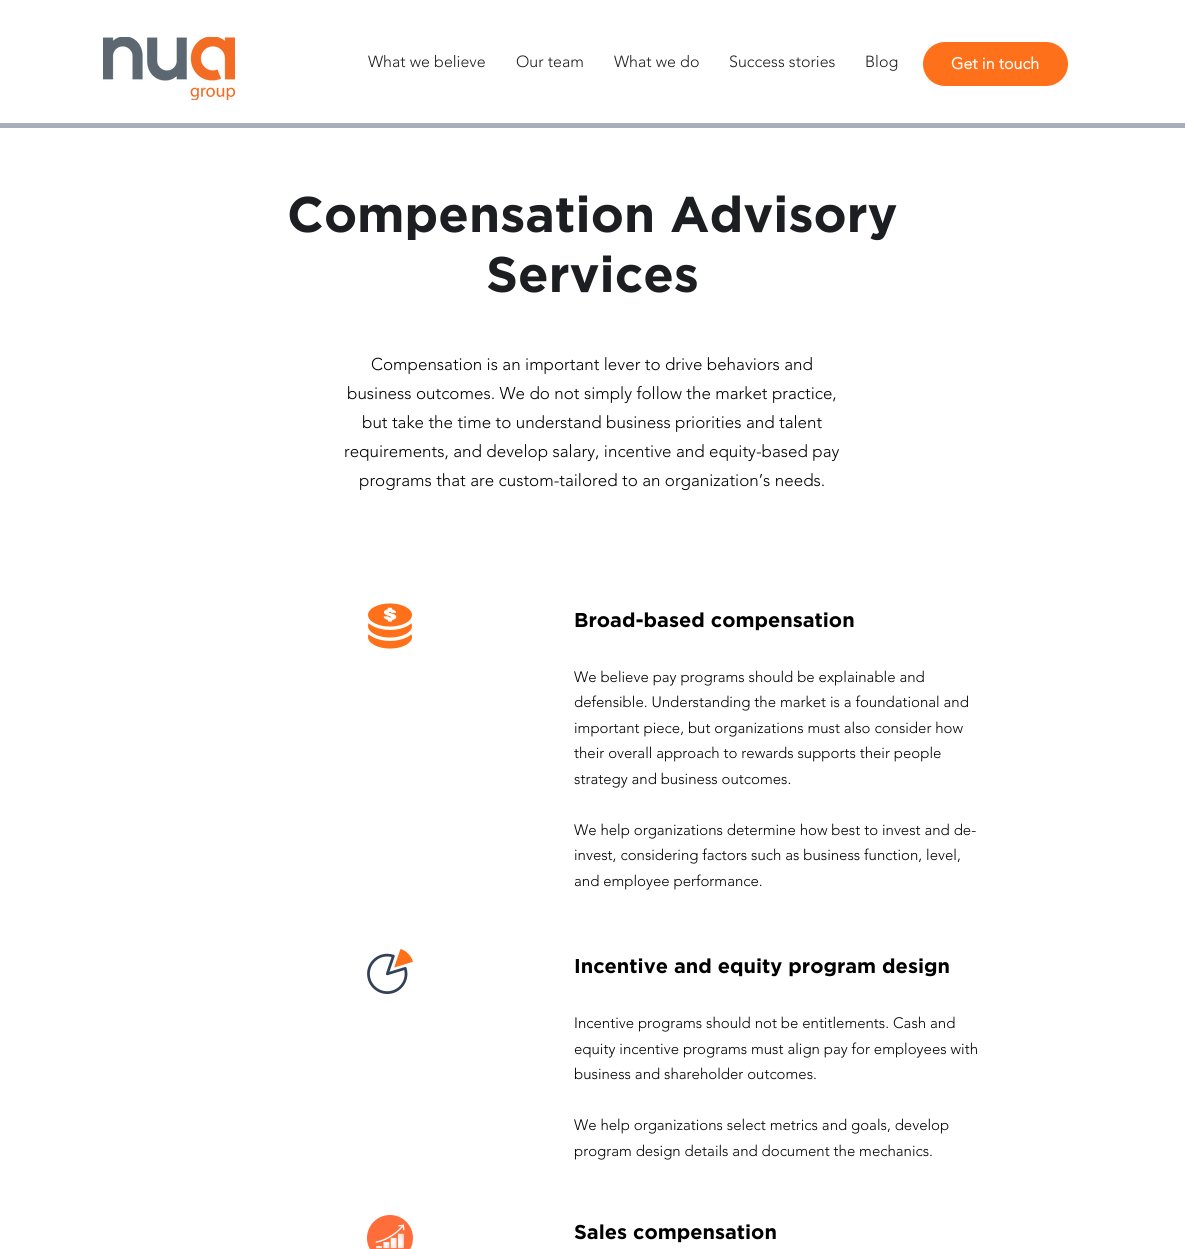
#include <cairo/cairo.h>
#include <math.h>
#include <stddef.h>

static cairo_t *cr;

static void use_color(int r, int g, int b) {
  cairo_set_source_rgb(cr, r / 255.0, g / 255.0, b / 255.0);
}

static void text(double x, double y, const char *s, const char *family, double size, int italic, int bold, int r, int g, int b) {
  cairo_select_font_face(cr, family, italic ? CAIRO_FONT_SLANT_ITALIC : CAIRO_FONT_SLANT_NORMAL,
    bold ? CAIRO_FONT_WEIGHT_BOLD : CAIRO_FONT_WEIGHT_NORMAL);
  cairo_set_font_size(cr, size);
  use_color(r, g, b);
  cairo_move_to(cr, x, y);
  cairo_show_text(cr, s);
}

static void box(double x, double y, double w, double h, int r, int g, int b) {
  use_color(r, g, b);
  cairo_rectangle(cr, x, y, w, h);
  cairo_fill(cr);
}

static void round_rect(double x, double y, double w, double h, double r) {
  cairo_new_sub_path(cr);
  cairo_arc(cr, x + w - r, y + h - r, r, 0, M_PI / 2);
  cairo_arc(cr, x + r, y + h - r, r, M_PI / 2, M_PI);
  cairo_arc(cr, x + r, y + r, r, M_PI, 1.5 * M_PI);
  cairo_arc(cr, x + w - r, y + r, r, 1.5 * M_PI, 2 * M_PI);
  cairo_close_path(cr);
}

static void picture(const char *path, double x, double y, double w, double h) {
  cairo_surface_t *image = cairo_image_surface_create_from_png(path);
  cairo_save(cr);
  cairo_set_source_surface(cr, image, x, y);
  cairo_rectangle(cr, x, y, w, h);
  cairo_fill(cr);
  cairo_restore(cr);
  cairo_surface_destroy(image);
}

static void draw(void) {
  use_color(255, 255, 255);
  cairo_paint(cr);
  picture("img_01.png", 103, 37, 132, 63);
  use_color(255, 112, 26);
  round_rect(924, 43, 143, 42, 21);
  cairo_fill_preserve(cr);
  cairo_stroke(cr);
  box(0, 123, 1185, 5, 170, 174, 186);
  picture("img_02.png", 368, 603, 44, 46);
  picture("img_03.png", 367, 949, 46, 45);
  picture("img_04.png", 367, 1215, 46, 34);
  text(368, 67, "What we believe", "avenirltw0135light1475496 Light", 16, 0, 0, 29, 30, 33);
  text(516, 67, "Our team", "avenirltw0135light1475496 Light", 16, 0, 0, 29, 30, 33);
  text(614, 67, "What we do", "avenirltw0135light1475496 Light", 16, 0, 0, 29, 30, 33);
  text(729, 67, "Success stories", "avenirltw0135light1475496 Light", 16, 0, 0, 29, 30, 33);
  text(865, 67, "Blog", "avenirltw0135light1475496 Light", 16, 0, 0, 29, 30, 33);
  text(951, 69, "Get in touch", "avenirltw0135light1475496", 16, 0, 1, 255, 255, 255);
  text(287, 232, "Compensation Advisory", "Gotham", 50, 0, 1, 29, 30, 33);
  text(486, 292, "Services", "Gotham", 50, 0, 1, 29, 30, 33);
  text(371, 370, "Compensation is an important lever to drive behaviors and", "avenirltw0135light1475496 Light", 17, 0, 0, 0, 0, 0);
  text(347, 399, "business outcomes. We do not simply follow the market practice,", "avenirltw0135light1475496 Light", 17, 0, 0, 0, 0, 0);
  text(362, 428, "but take the time to understand business priorities and talent", "avenirltw0135light1475496 Light", 17, 0, 0, 0, 0, 0);
  text(344, 457, "requirements, and develop salary, incentive and equity-based pay", "avenirltw0135light1475496 Light", 17, 0, 0, 0, 0, 0);
  text(359, 486, "programs that are custom-tailored to an organization’s needs.", "avenirltw0135light1475496 Light", 17, 0, 0, 0, 0, 0);
  text(574, 627, "Broad-based compensation", "Gotham", 20, 0, 1, 0, 0, 0);
  text(574, 682, "We believe pay programs should be explainable and", "avenirltw0135light1475496 Light", 15, 0, 0, 0, 0, 0);
  text(574, 707, "defensible. Understanding the market is a foundational and", "avenirltw0135light1475496 Light", 15, 0, 0, 0, 0, 0);
  text(574, 733, "important piece, but organizations must also consider how", "avenirltw0135light1475496 Light", 15, 0, 0, 0, 0, 0);
  text(574, 758, "their overall approach to rewards supports their people", "avenirltw0135light1475496 Light", 15, 0, 0, 0, 0, 0);
  text(574, 784, "strategy and business outcomes.", "avenirltw0135light1475496 Light", 15, 0, 0, 0, 0, 0);
  text(574, 835, "We help organizations determine how best to invest and de-", "avenirltw0135light1475496 Light", 15, 0, 0, 0, 0, 0);
  text(574, 860, "invest, considering factors such as business function, level,", "avenirltw0135light1475496 Light", 15, 0, 0, 0, 0, 0);
  text(574, 886, "and employee performance.", "avenirltw0135light1475496 Light", 15, 0, 0, 0, 0, 0);
  text(574, 973, "Incentive and equity program design", "Gotham", 20, 0, 1, 0, 0, 0);
  text(574, 1028, "Incentive programs should not be entitlements. Cash and", "avenirltw0135light1475496 Light", 15, 0, 0, 0, 0, 0);
  text(574, 1054, "equity incentive programs must align pay for employees with", "avenirltw0135light1475496 Light", 15, 0, 0, 0, 0, 0);
  text(574, 1079, "business and shareholder outcomes.", "avenirltw0135light1475496 Light", 15, 0, 0, 0, 0, 0);
  text(574, 1130, "We help organizations select metrics and goals, develop", "avenirltw0135light1475496 Light", 15, 0, 0, 0, 0, 0);
  text(574, 1156, "program design details and document the mechanics.", "avenirltw0135light1475496 Light", 15, 0, 0, 0, 0, 0);
  text(574, 1239, "Sales compensation", "Gotham", 20, 0, 1, 0, 0, 0);
}

int main(void) {
  cairo_surface_t *surface = cairo_image_surface_create(CAIRO_FORMAT_RGB24, 1185, 1249);
  cr = cairo_create(surface);
  cairo_font_options_t *options = cairo_font_options_create();
  cairo_font_options_set_hint_metrics(options, CAIRO_HINT_METRICS_OFF);
  cairo_font_options_set_hint_style(options, CAIRO_HINT_STYLE_NONE);
  cairo_set_font_options(cr, options);
  cairo_set_miter_limit(cr, 4);
  draw();
  cairo_surface_write_to_png(surface, "out.png");
  cairo_font_options_destroy(options);
  cairo_destroy(cr);
  cairo_surface_destroy(surface);
  return 0;
}
